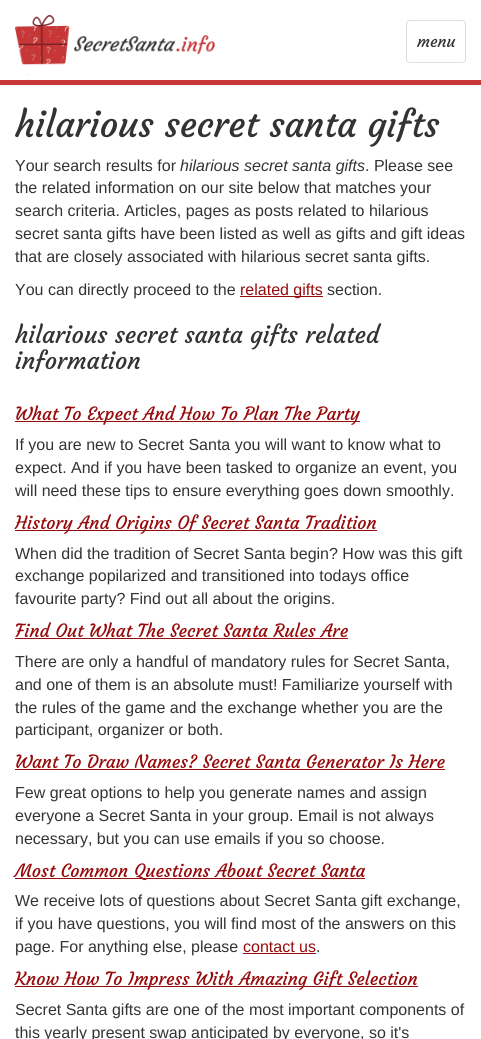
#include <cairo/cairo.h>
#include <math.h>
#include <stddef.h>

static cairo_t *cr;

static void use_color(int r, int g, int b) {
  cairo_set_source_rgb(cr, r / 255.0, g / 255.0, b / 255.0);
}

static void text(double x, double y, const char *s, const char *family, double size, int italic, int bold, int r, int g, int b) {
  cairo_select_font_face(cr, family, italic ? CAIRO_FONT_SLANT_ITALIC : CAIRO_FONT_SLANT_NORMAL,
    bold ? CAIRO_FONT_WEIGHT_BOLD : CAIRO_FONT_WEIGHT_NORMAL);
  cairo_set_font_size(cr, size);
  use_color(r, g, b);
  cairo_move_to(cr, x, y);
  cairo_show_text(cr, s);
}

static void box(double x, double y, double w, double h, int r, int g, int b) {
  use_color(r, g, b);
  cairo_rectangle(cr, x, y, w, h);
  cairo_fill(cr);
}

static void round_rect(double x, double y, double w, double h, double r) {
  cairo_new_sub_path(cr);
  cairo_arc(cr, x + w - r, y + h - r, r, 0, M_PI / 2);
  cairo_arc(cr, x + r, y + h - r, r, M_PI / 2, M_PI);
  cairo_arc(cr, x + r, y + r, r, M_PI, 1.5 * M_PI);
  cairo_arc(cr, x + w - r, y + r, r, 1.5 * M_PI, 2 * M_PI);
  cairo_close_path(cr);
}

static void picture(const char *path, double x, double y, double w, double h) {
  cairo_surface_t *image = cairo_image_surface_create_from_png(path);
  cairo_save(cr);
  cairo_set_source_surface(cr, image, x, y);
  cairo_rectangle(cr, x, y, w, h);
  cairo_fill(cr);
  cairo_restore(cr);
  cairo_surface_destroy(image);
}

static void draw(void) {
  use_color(255, 255, 255);
  cairo_paint(cr);
  picture("img_01.png", 15, 15, 200, 61);
  round_rect(406.5, 20.5, 59, 42, 3.5);
  use_color(221, 221, 221);
  cairo_set_line_width(cr, 1);
  cairo_stroke(cr);
  box(0, 80, 481, 5, 200, 55, 55);
  box(240, 296, 83, 1, 150, 11, 11);
  box(15, 421, 345, 1, 150, 11, 11);
  box(15, 530, 362, 1, 150, 11, 11);
  box(15, 638, 333, 1, 150, 11, 11);
  box(15, 769, 430, 1, 150, 11, 11);
  box(15, 878, 350, 1, 150, 11, 11);
  box(243, 953, 73, 1, 150, 11, 11);
  box(15, 986, 403, 1, 150, 11, 11);
  text(417, 47, "menu", "Courgette", 16, 0, 0, 51, 51, 51);
  text(15, 137, "hilarious secret santa gifts", "Courgette", 36, 0, 0, 51, 51, 51);
  text(15, 171, "Your search results for", "Liberation Sans", 16, 0, 0, 51, 51, 51);
  text(180, 171, "hilarious secret santa gifts", "Liberation Sans", 16, 1, 0, 51, 51, 51);
  text(365, 171, ". Please see", "Liberation Sans", 16, 0, 0, 51, 51, 51);
  text(15, 193, "the related information on our site below that matches your", "Liberation Sans", 16, 0, 0, 51, 51, 51);
  text(15, 216, "search criteria. Articles, pages as posts related to hilarious", "Liberation Sans", 16, 0, 0, 51, 51, 51);
  text(15, 239, "secret santa gifts have been listed as well as gifts and gift ideas", "Liberation Sans", 16, 0, 0, 51, 51, 51);
  text(15, 262, "that are closely associated with hilarious secret santa gifts.", "Liberation Sans", 16, 0, 0, 51, 51, 51);
  text(15, 295, "You can directly proceed to the", "Liberation Sans", 16, 0, 0, 51, 51, 51);
  text(240, 295, "related gifts", "Liberation Sans", 16, 0, 0, 150, 11, 11);
  text(327, 295, "section.", "Liberation Sans", 16, 0, 0, 51, 51, 51);
  text(15, 343, "hilarious secret santa gifts related", "Courgette", 24, 0, 0, 51, 51, 51);
  text(15, 369, "information", "Courgette", 24, 0, 0, 51, 51, 51);
  text(15, 420, "What To Expect And How To Plan The Party", "Courgette", 18, 0, 0, 150, 11, 11);
  text(15, 450, "If you are new to Secret Santa you will want to know what to", "Liberation Sans", 16, 0, 0, 51, 51, 51);
  text(15, 473, "expect. And if you have been tasked to organize an event, you", "Liberation Sans", 16, 0, 0, 51, 51, 51);
  text(15, 496, "will need these tips to ensure everything goes down smoothly.", "Liberation Sans", 16, 0, 0, 51, 51, 51);
  text(15, 529, "History And Origins Of Secret Santa Tradition", "Courgette", 18, 0, 0, 150, 11, 11);
  text(15, 559, "When did the tradition of Secret Santa begin? How was this gift", "Liberation Sans", 16, 0, 0, 51, 51, 51);
  text(15, 581, "exchange popilarized and transitioned into todays office", "Liberation Sans", 16, 0, 0, 51, 51, 51);
  text(15, 604, "favourite party? Find out all about the origins.", "Liberation Sans", 16, 0, 0, 51, 51, 51);
  text(15, 637, "Find Out What The Secret Santa Rules Are", "Courgette", 18, 0, 0, 150, 11, 11);
  text(15, 667, "There are only a handful of mandatory rules for Secret Santa,", "Liberation Sans", 16, 0, 0, 51, 51, 51);
  text(15, 690, "and one of them is an absolute must! Familiarize yourself with", "Liberation Sans", 16, 0, 0, 51, 51, 51);
  text(15, 713, "the rules of the game and the exchange whether you are the", "Liberation Sans", 16, 0, 0, 51, 51, 51);
  text(15, 735, "participant, organizer or both.", "Liberation Sans", 16, 0, 0, 51, 51, 51);
  text(15, 768, "Want To Draw Names? Secret Santa Generator Is Here", "Courgette", 18, 0, 0, 150, 11, 11);
  text(15, 798, "Few great options to help you generate names and assign", "Liberation Sans", 16, 0, 0, 51, 51, 51);
  text(15, 821, "everyone a Secret Santa in your group. Email is not always", "Liberation Sans", 16, 0, 0, 51, 51, 51);
  text(15, 844, "necessary, but you can use emails if you so choose.", "Liberation Sans", 16, 0, 0, 51, 51, 51);
  text(15, 877, "Most Common Questions About Secret Santa", "Courgette", 18, 0, 0, 150, 11, 11);
  text(15, 906, "We receive lots of questions about Secret Santa gift exchange,", "Liberation Sans", 16, 0, 0, 51, 51, 51);
  text(15, 929, "if you have questions, you will find most of the answers on this", "Liberation Sans", 16, 0, 0, 51, 51, 51);
  text(15, 952, "page. For anything else, please", "Liberation Sans", 16, 0, 0, 51, 51, 51);
  text(243, 952, "contact us", "Liberation Sans", 16, 0, 0, 150, 11, 11);
  text(316, 952, ".", "Liberation Sans", 16, 0, 0, 51, 51, 51);
  text(15, 985, "Know How To Impress With Amazing Gift Selection", "Courgette", 18, 0, 0, 150, 11, 11);
  text(15, 1015, "Secret Santa gifts are one of the most important components of", "Liberation Sans", 16, 0, 0, 51, 51, 51);
  text(15, 1038, "this yearly present swap anticipated by everyone, so it's", "Liberation Sans", 16, 0, 0, 51, 51, 51);
}

int main(void) {
  cairo_surface_t *surface = cairo_image_surface_create(CAIRO_FORMAT_RGB24, 481, 1039);
  cr = cairo_create(surface);
  cairo_font_options_t *options = cairo_font_options_create();
  cairo_font_options_set_hint_metrics(options, CAIRO_HINT_METRICS_OFF);
  cairo_font_options_set_hint_style(options, CAIRO_HINT_STYLE_NONE);
  cairo_set_font_options(cr, options);
  cairo_set_miter_limit(cr, 4);
  draw();
  cairo_surface_write_to_png(surface, "out.png");
  cairo_font_options_destroy(options);
  cairo_destroy(cr);
  cairo_surface_destroy(surface);
  return 0;
}
